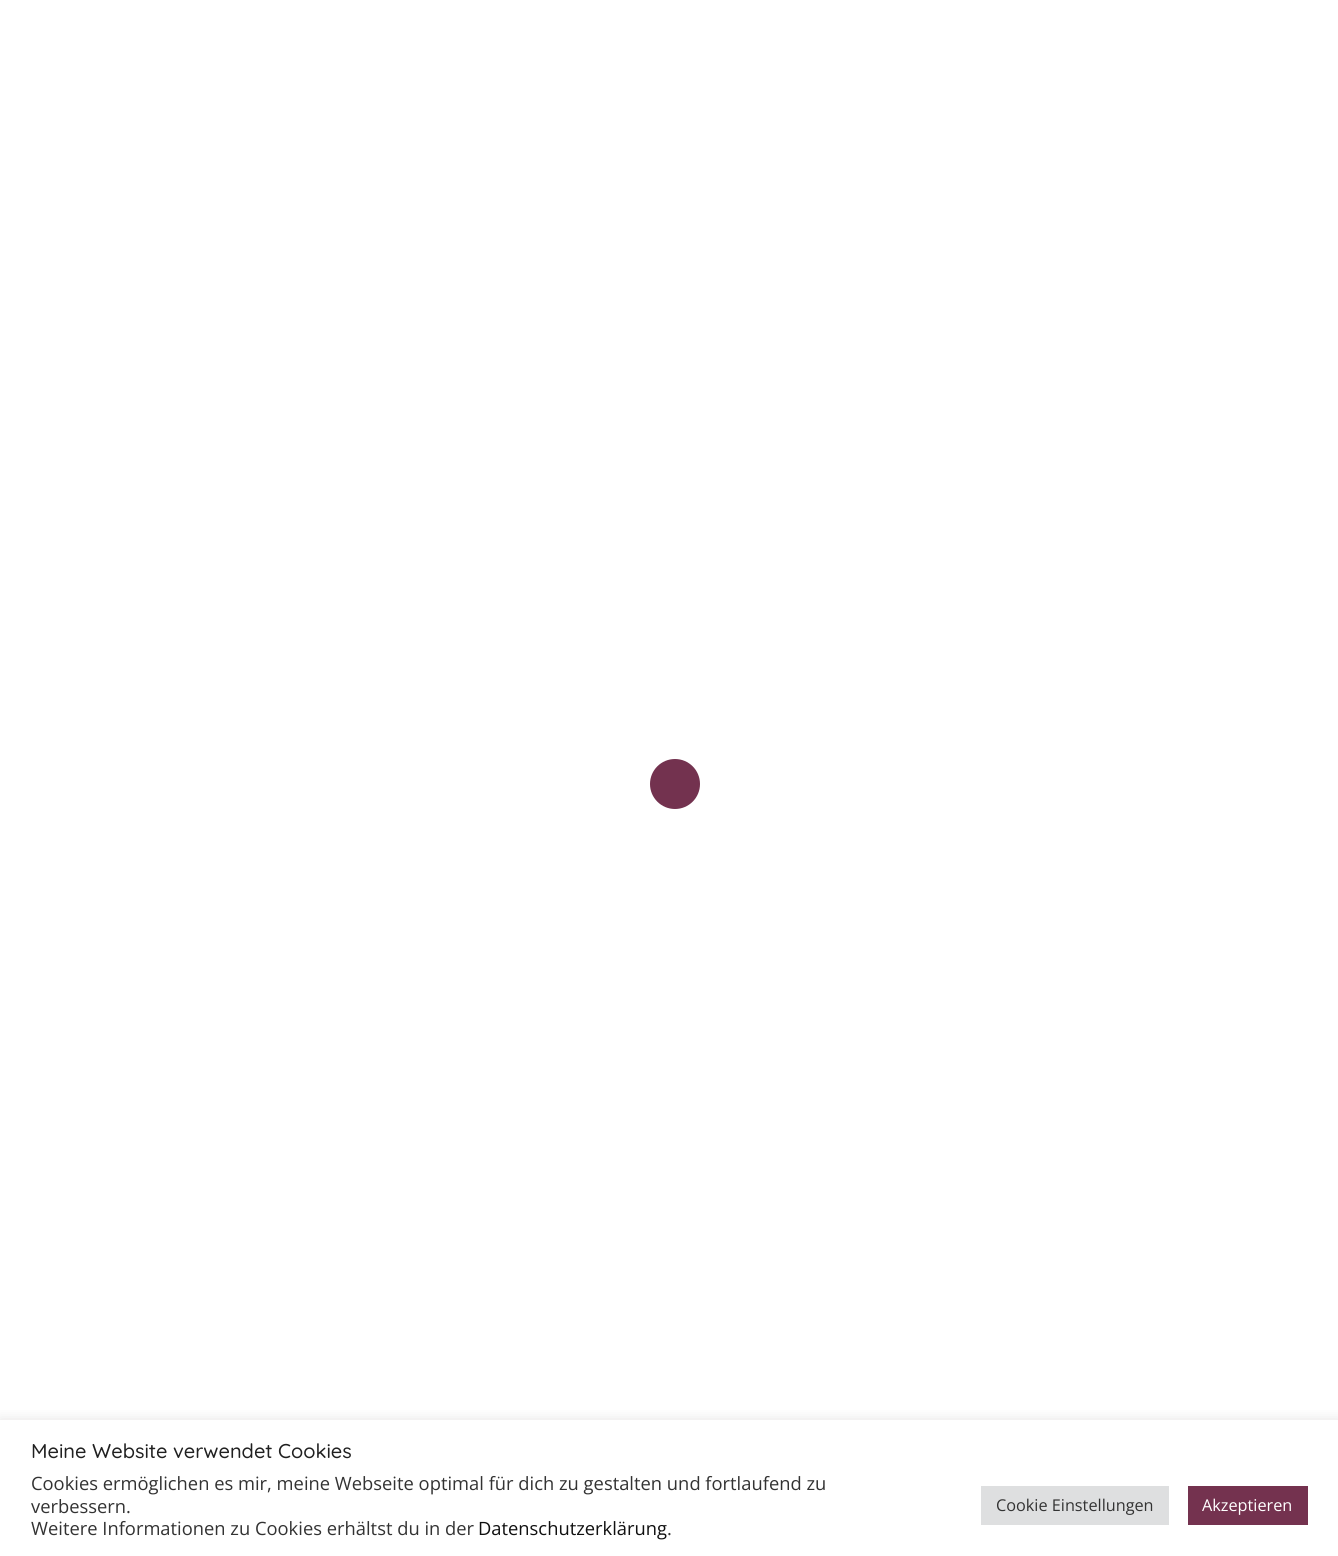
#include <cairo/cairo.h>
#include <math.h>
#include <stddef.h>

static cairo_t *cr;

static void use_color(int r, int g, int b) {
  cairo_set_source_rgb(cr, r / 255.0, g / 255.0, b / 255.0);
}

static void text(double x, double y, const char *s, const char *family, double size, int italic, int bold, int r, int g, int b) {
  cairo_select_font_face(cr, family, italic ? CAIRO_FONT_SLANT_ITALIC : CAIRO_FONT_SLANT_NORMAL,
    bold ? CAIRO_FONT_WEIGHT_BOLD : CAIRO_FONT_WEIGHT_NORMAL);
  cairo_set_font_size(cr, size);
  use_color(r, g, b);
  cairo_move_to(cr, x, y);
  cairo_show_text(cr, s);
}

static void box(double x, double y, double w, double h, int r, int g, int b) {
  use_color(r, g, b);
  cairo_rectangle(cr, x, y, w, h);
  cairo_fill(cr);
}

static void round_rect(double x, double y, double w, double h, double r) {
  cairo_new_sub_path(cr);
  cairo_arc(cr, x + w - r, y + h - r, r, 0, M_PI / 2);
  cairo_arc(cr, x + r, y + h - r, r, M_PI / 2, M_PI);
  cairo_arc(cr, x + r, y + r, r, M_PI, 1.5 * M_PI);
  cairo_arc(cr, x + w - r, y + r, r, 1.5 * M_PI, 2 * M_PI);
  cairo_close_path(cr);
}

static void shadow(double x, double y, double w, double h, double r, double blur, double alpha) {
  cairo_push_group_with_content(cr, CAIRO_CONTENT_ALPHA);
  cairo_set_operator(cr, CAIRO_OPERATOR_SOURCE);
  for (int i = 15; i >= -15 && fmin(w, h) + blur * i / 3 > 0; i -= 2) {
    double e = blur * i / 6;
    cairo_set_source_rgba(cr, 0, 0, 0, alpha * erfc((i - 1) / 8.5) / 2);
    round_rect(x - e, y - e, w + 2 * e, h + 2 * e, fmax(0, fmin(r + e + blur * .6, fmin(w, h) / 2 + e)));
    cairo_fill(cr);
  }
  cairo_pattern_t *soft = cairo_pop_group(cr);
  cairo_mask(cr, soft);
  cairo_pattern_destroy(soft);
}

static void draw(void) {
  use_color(255, 255, 255);
  cairo_paint(cr);
  use_color(115, 50, 79);
  cairo_arc(cr, 675, 784, 25, 0, 2 * M_PI);
  cairo_fill(cr);
  cairo_save(cr);
  cairo_rectangle(cr, 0, 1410, 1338, 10);
  cairo_clip(cr);
  use_color(172, 171, 171);
  shadow(0, 1419, 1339, 136, 0, 6, 0.3);
  cairo_restore(cr);
  box(981, 1486, 188, 39, 222, 223, 224);
  box(1188, 1486, 120, 39, 116, 50, 79);
  text(31, 1458, "Meine Website verwendet Cookies", "Quicksand Medium", 20, 0, 0, 32, 32, 32);
  text(31, 1490, "Cookies ermöglichen es mir, meine Webseite optimal für dich zu gestalten und fortlaufend zu", "Open Sans", 18.35, 0, 0, 51, 51, 51);
  text(31, 1513, "verbessern.", "Open Sans", 18.35, 0, 0, 51, 51, 51);
  text(31, 1535, "Weitere Informationen zu Cookies erhältst du in der", "Open Sans", 18.35, 0, 0, 51, 51, 51);
  text(478, 1535, "Datenschutzerklärung", "Open Sans", 18.35, 0, 0, 16, 16, 16);
  text(667, 1535, ".", "Open Sans", 18.35, 0, 0, 51, 51, 51);
  text(996, 1511, "Cookie Einstellungen", "Open Sans", 16.25, 0, 0, 51, 51, 51);
  text(1202, 1511, "Akzeptieren", "Open Sans", 16.25, 0, 0, 255, 255, 255);
}

int main(void) {
  cairo_surface_t *surface = cairo_image_surface_create(CAIRO_FORMAT_RGB24, 1338, 1556);
  cr = cairo_create(surface);
  cairo_font_options_t *options = cairo_font_options_create();
  cairo_font_options_set_hint_metrics(options, CAIRO_HINT_METRICS_OFF);
  cairo_font_options_set_hint_style(options, CAIRO_HINT_STYLE_NONE);
  cairo_set_font_options(cr, options);
  cairo_set_miter_limit(cr, 4);
  draw();
  cairo_surface_write_to_png(surface, "out.png");
  cairo_font_options_destroy(options);
  cairo_destroy(cr);
  cairo_surface_destroy(surface);
  return 0;
}
